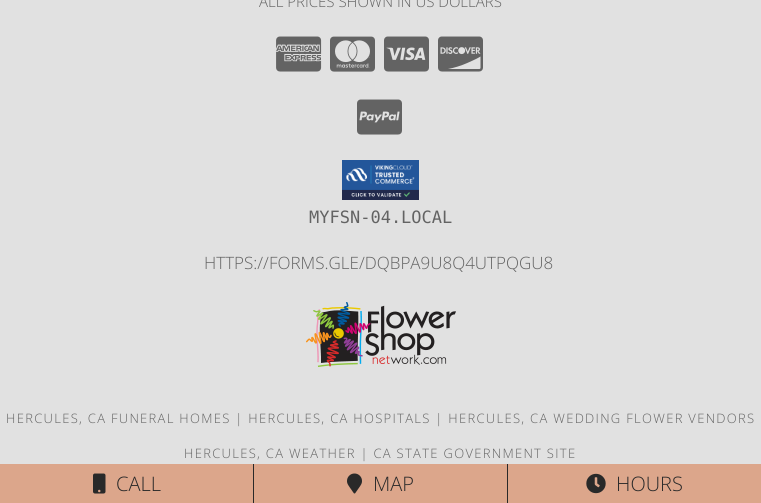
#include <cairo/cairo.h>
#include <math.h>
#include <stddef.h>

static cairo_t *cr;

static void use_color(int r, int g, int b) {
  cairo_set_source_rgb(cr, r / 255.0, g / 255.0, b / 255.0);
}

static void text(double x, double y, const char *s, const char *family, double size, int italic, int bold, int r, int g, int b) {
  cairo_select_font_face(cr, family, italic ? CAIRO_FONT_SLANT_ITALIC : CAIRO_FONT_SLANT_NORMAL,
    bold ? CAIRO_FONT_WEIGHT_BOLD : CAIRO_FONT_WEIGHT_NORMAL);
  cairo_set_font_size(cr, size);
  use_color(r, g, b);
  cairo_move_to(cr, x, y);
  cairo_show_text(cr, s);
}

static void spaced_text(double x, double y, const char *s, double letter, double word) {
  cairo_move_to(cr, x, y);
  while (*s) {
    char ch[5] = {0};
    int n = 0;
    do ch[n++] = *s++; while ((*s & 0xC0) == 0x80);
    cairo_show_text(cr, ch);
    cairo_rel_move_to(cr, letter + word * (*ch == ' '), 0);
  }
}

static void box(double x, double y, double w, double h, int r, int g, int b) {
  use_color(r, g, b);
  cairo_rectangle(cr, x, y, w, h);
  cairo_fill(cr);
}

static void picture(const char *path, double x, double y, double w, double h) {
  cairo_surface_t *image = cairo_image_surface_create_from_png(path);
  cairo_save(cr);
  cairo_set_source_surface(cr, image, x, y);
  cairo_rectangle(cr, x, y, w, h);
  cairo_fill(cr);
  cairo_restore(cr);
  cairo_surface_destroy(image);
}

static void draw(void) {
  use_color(225, 225, 225);
  cairo_paint(cr);
  picture("img_01.png", 276, 36, 46, 36);
  picture("img_02.png", 330, 36, 45, 36);
  picture("img_03.png", 384, 36, 45, 36);
  picture("img_04.png", 438, 36, 45, 36);
  picture("img_05.png", 357, 99, 45, 36);
  picture("img_06.png", 342, 160, 77, 40);
  picture("img_07.png", 306, 302, 150, 65);
  box(0, 464, 253, 39, 220, 166, 139);
  picture("img_08.png", 93, 473, 13, 21);
  box(254, 464, 253, 39, 220, 166, 139);
  box(253, 464, 1, 39, 41, 41, 41);
  picture("img_09.png", 347, 473, 15, 21);
  box(508, 464, 253, 39, 220, 166, 139);
  box(507, 464, 1, 39, 41, 41, 41);
  picture("img_10.png", 586, 473, 20, 21);
  text(259, 7, "ALL PRICES SHOWN IN US DOLLARS", "Open Sans Light", 15, 0, 0, 99, 99, 99);
  text(309, 223, "MYFSN-04.LOCAL", "DejaVu Sans Mono", 17, 0, 0, 99, 99, 99);
  text(204, 269, "HTTPS://FORMS.GLE/DQBPA9U8Q4UTPQGU8", "Open Sans Light", 17, 0, 0, 99, 99, 99);
  cairo_set_font_size(cr, 13);
  spaced_text(6, 423, "HERCULES, CA FUNERAL HOMES | HERCULES, CA HOSPITALS | HERCULES, CA WEDDING FLOWER VENDORS", 1.3, 0);
  spaced_text(184, 458, "HERCULES, CA WEATHER | CA STATE GOVERNMENT SITE", 1.3, 0);
  text(116, 491, "CALL", "Open Sans Light", 20, 0, 0, 41, 41, 41);
  text(373, 491, "MAP", "Open Sans Light", 20, 0, 0, 41, 41, 41);
  text(616, 491, "HOURS", "Open Sans Light", 20, 0, 0, 41, 41, 41);
}

int main(void) {
  cairo_surface_t *surface = cairo_image_surface_create(CAIRO_FORMAT_RGB24, 761, 503);
  cr = cairo_create(surface);
  cairo_font_options_t *options = cairo_font_options_create();
  cairo_font_options_set_hint_metrics(options, CAIRO_HINT_METRICS_OFF);
  cairo_font_options_set_hint_style(options, CAIRO_HINT_STYLE_NONE);
  cairo_set_font_options(cr, options);
  cairo_set_miter_limit(cr, 4);
  draw();
  cairo_surface_write_to_png(surface, "out.png");
  cairo_font_options_destroy(options);
  cairo_destroy(cr);
  cairo_surface_destroy(surface);
  return 0;
}
